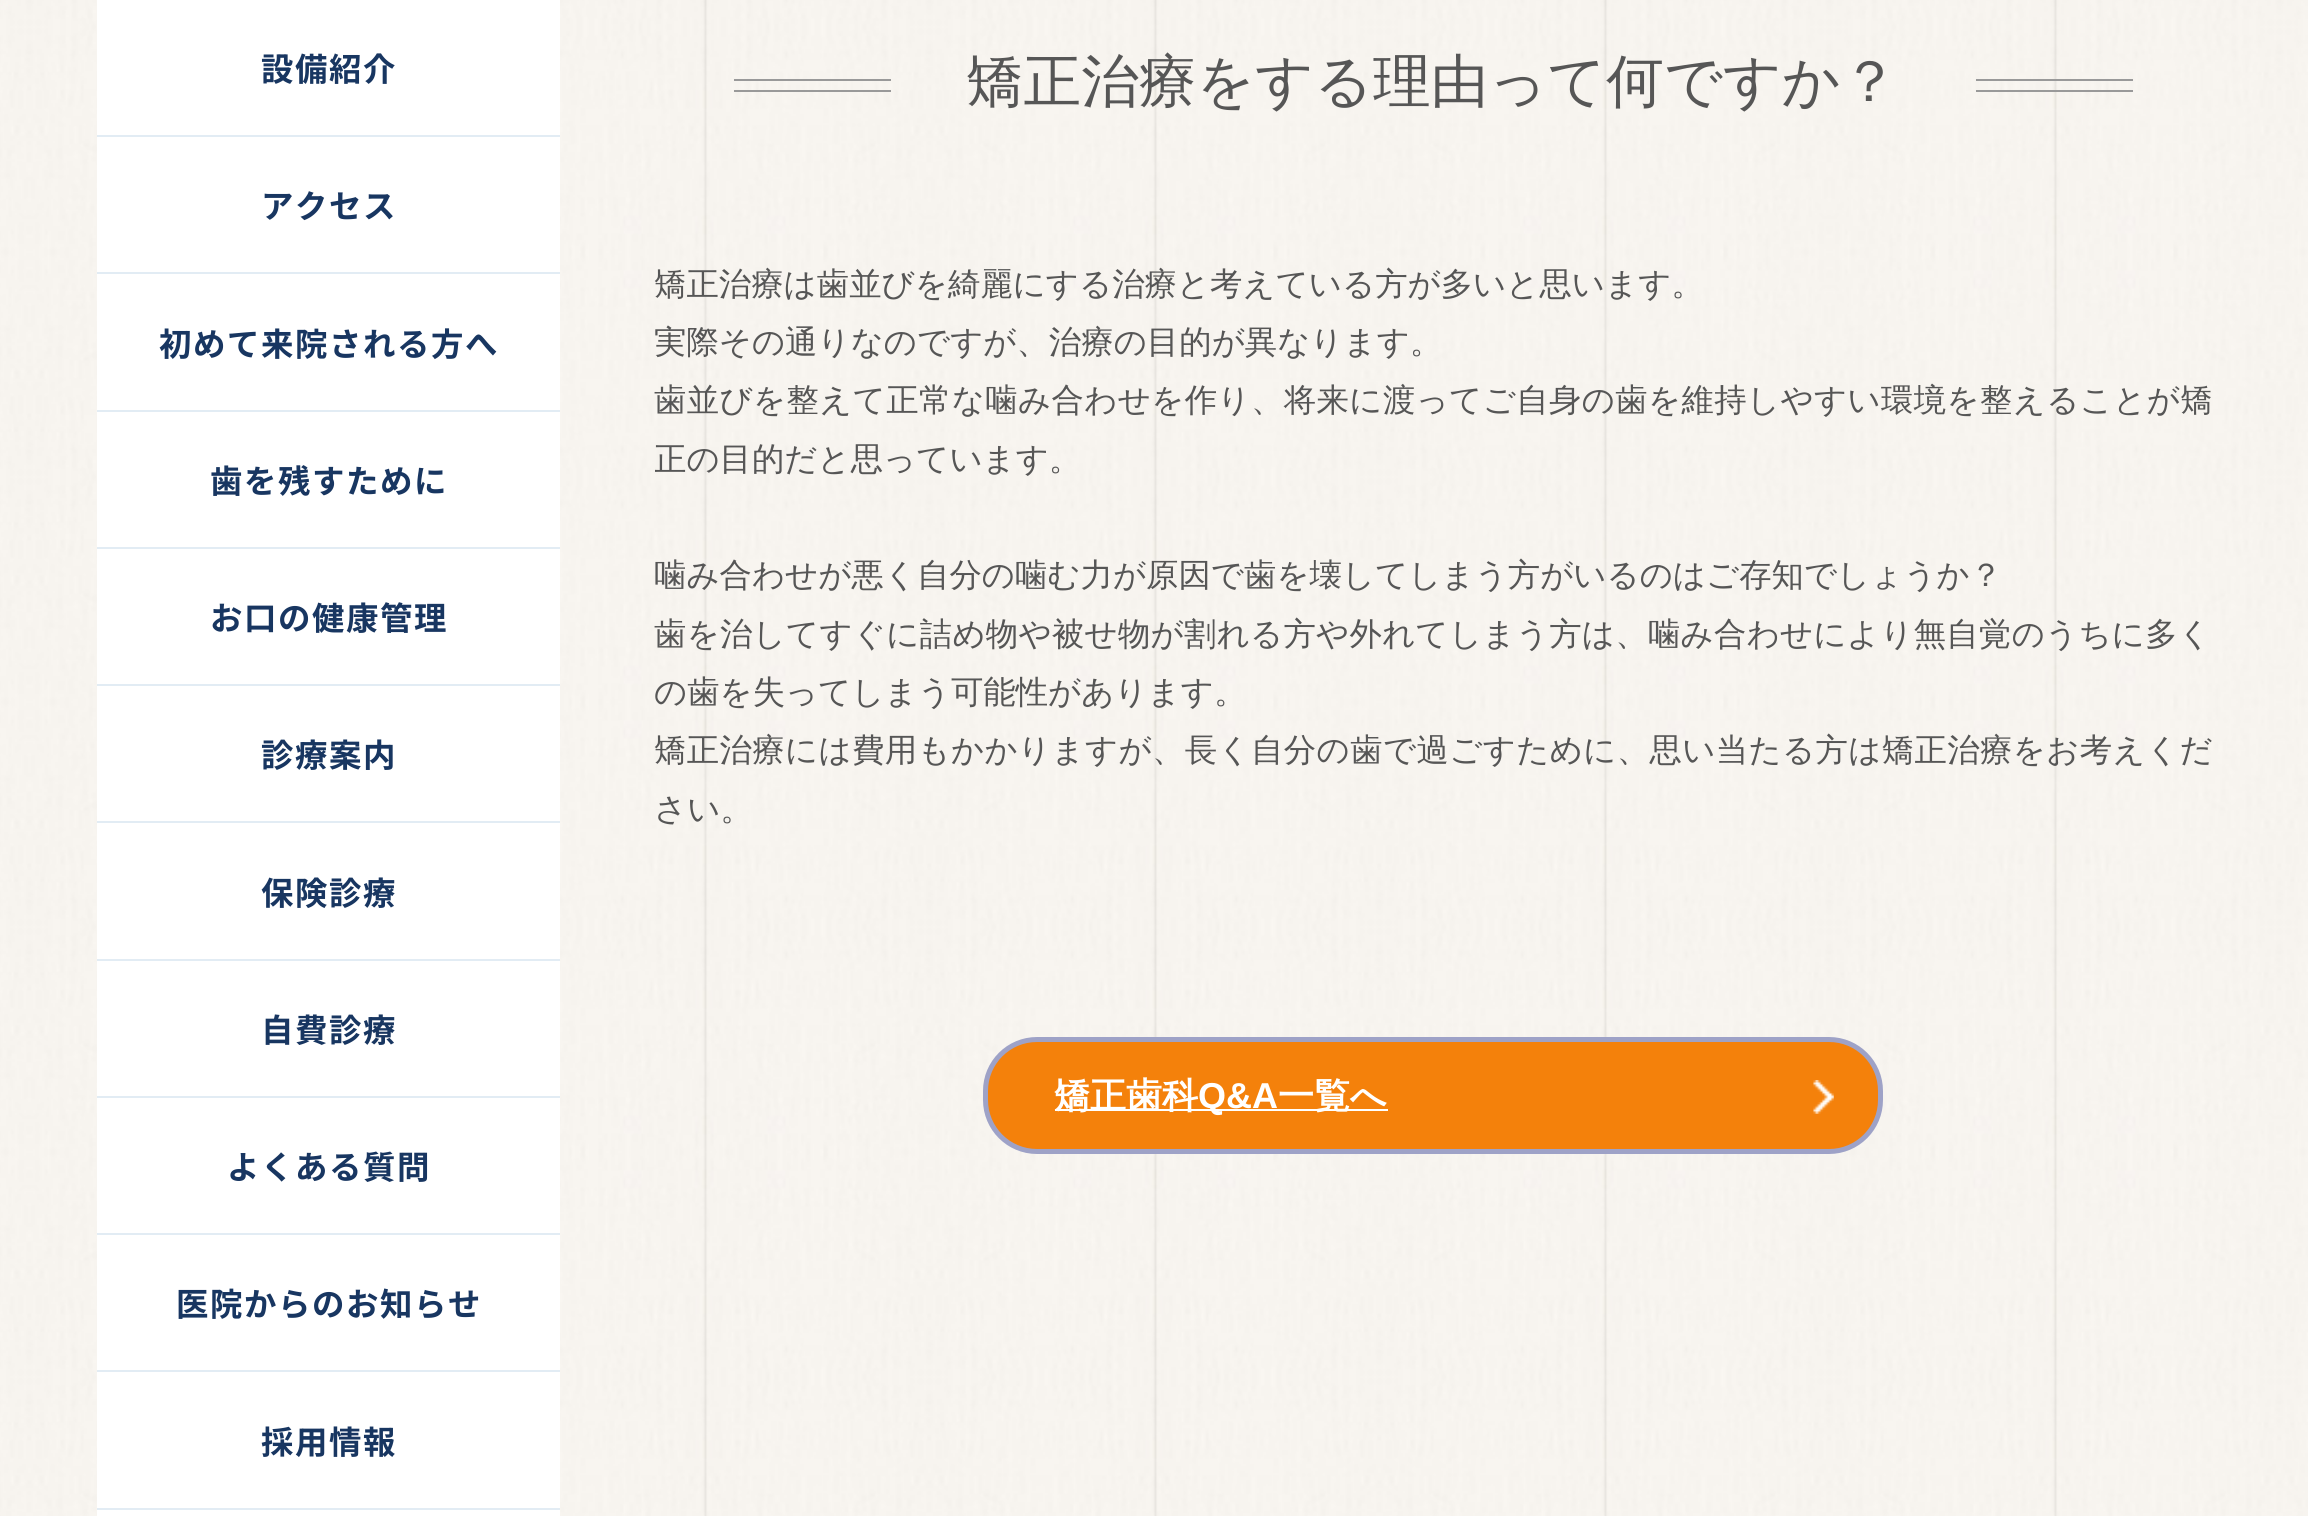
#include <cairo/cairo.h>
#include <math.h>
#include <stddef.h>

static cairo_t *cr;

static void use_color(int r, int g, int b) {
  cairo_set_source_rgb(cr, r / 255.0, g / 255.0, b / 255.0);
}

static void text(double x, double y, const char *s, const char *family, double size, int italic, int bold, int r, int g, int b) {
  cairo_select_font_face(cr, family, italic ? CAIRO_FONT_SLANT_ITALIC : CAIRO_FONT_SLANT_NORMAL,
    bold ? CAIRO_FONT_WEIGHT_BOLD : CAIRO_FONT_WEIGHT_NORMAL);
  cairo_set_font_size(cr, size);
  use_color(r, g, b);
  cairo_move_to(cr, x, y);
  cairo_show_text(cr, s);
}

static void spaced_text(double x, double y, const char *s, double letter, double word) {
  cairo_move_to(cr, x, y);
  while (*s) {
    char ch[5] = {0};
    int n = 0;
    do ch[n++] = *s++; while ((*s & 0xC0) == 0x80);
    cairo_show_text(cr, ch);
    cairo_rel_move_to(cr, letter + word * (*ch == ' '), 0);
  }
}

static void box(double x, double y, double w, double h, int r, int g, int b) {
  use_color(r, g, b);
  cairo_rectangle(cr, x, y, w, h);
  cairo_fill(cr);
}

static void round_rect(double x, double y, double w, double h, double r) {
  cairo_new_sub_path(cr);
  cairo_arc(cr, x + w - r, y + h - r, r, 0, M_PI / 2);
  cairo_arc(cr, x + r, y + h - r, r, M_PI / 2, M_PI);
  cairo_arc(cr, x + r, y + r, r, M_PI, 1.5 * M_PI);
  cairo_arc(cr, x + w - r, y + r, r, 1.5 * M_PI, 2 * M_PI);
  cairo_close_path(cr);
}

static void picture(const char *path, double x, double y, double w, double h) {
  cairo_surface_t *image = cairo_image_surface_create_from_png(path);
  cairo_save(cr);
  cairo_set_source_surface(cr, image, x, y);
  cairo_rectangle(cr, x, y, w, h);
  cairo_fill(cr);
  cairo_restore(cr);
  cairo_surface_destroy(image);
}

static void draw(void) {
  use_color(255, 255, 255);
  cairo_paint(cr);
  picture("img_01.png", 0, 0, 2308, 1516);
  box(97, 0, 463, 1516, 255, 255, 255);
  box(97, 135, 463, 2, 226, 236, 244);
  box(97, 272, 463, 2, 226, 236, 244);
  box(97, 410, 463, 2, 226, 236, 244);
  box(97, 547, 463, 2, 226, 236, 244);
  box(97, 684, 463, 2, 226, 236, 244);
  box(97, 821, 463, 2, 226, 236, 244);
  box(97, 959, 463, 2, 226, 236, 244);
  box(97, 1096, 463, 2, 226, 236, 244);
  box(97, 1233, 463, 2, 226, 236, 244);
  box(97, 1370, 463, 2, 226, 236, 244);
  box(97, 1508, 463, 2, 226, 236, 244);
  box(734, 79, 157, 2, 153, 153, 153);
  box(734, 90, 157, 2, 153, 153, 153);
  box(1976, 79, 157, 2, 153, 153, 153);
  box(1976, 90, 157, 2, 153, 153, 153);
  use_color(244, 129, 11);
  round_rect(985.5, 1039.5, 895, 112, 51.5);
  cairo_fill_preserve(cr);
  use_color(158, 162, 199);
  cairo_set_line_width(cr, 5);
  cairo_stroke(cr);
  box(1055, 1109, 333, 2, 255, 255, 255);
  picture("img_02.png", 1813, 1080, 21, 34);
  cairo_select_font_face(cr, "Noto Sans JP", CAIRO_FONT_SLANT_NORMAL, CAIRO_FONT_WEIGHT_BOLD);
  cairo_set_font_size(cr, 32.4);
  use_color(24, 54, 97);
  spaced_text(261, 81, "設備紹介", 1.6, 0);
  spaced_text(261, 218, "アクセス", 1.6, 0);
  spaced_text(159, 356, "初めて来院される方へ", 1.6, 0);
  spaced_text(210, 493, "歯を残すために", 1.6, 0);
  spaced_text(210, 630, "お口の健康管理", 1.6, 0);
  spaced_text(261, 767, "診療案内", 1.6, 0);
  spaced_text(261, 905, "保険診療", 1.6, 0);
  spaced_text(261, 1042, "自費診療", 1.6, 0);
  spaced_text(227, 1179, "よくある質問", 1.6, 0);
  spaced_text(176, 1316, "医院からのお知らせ", 1.6, 0);
  spaced_text(261, 1454, "採用情報", 1.6, 0);
  text(966, 101, "矯正治療をする理由って何ですか？", "WenQuanYi Zen Hei Medium", 57.6, 0, 0, 86, 86, 86);
  text(654, 295, "矯正治療は歯並びを綺麗にする治療と考えている方が多いと思います。", "WenQuanYi Zen Hei Medium", 32.4, 0, 0, 86, 86, 86);
  text(654, 353, "実際その通りなのですが、治療の目的が異なります。", "WenQuanYi Zen Hei Medium", 32.4, 0, 0, 86, 86, 86);
  spaced_text(654, 411, "歯並びを整えて正常な噛み合わせを作り、将来に渡ってご自身の歯を維持しやすい環境を整えることが矯", 0.35, 0);
  cairo_save(cr);
  cairo_rectangle(cr, 655, 257, 1557, 582);
  cairo_clip(cr);
  text(654, 470, "正の目的だと思っています。", "WenQuanYi Zen Hei Medium", 32.4, 0, 0, 86, 86, 86);
  cairo_restore(cr);
  text(654, 586, "噛み合わせが悪く自分の噛む力が原因で歯を壊してしまう方がいるのはご存知でしょうか？", "WenQuanYi Zen Hei Medium", 32.4, 0, 0, 86, 86, 86);
  spaced_text(654, 645, "歯を治してすぐに詰め物や被せ物が割れる方や外れてしまう方は、噛み合わせにより無自覚のうちに多く", 0.25, 0);
  text(654, 703, "の歯を失ってしまう可能性があります。", "WenQuanYi Zen Hei Medium", 32.4, 0, 0, 86, 86, 86);
  spaced_text(654, 761, "矯正治療には費用もかかりますが、長く自分の歯で過ごすために、思い当たる方は矯正治療をお考えくだ", 0.35, 0);
  text(654, 820, "さい。", "WenQuanYi Zen Hei Medium", 32.4, 0, 0, 86, 86, 86);
  text(1054, 1108, "矯正歯科", "WenQuanYi Zen Hei", 36, 0, 1, 255, 255, 255);
  text(1198, 1108, "Q&A", "Liberation Sans", 36, 0, 1, 255, 255, 255);
  text(1278, 1108, "一覧へ", "WenQuanYi Zen Hei", 36, 0, 1, 255, 255, 255);
}

int main(void) {
  cairo_surface_t *surface = cairo_image_surface_create(CAIRO_FORMAT_RGB24, 2308, 1516);
  cr = cairo_create(surface);
  cairo_font_options_t *options = cairo_font_options_create();
  cairo_font_options_set_hint_metrics(options, CAIRO_HINT_METRICS_OFF);
  cairo_font_options_set_hint_style(options, CAIRO_HINT_STYLE_NONE);
  cairo_set_font_options(cr, options);
  cairo_set_miter_limit(cr, 4);
  draw();
  cairo_surface_write_to_png(surface, "out.png");
  cairo_font_options_destroy(options);
  cairo_destroy(cr);
  cairo_surface_destroy(surface);
  return 0;
}
